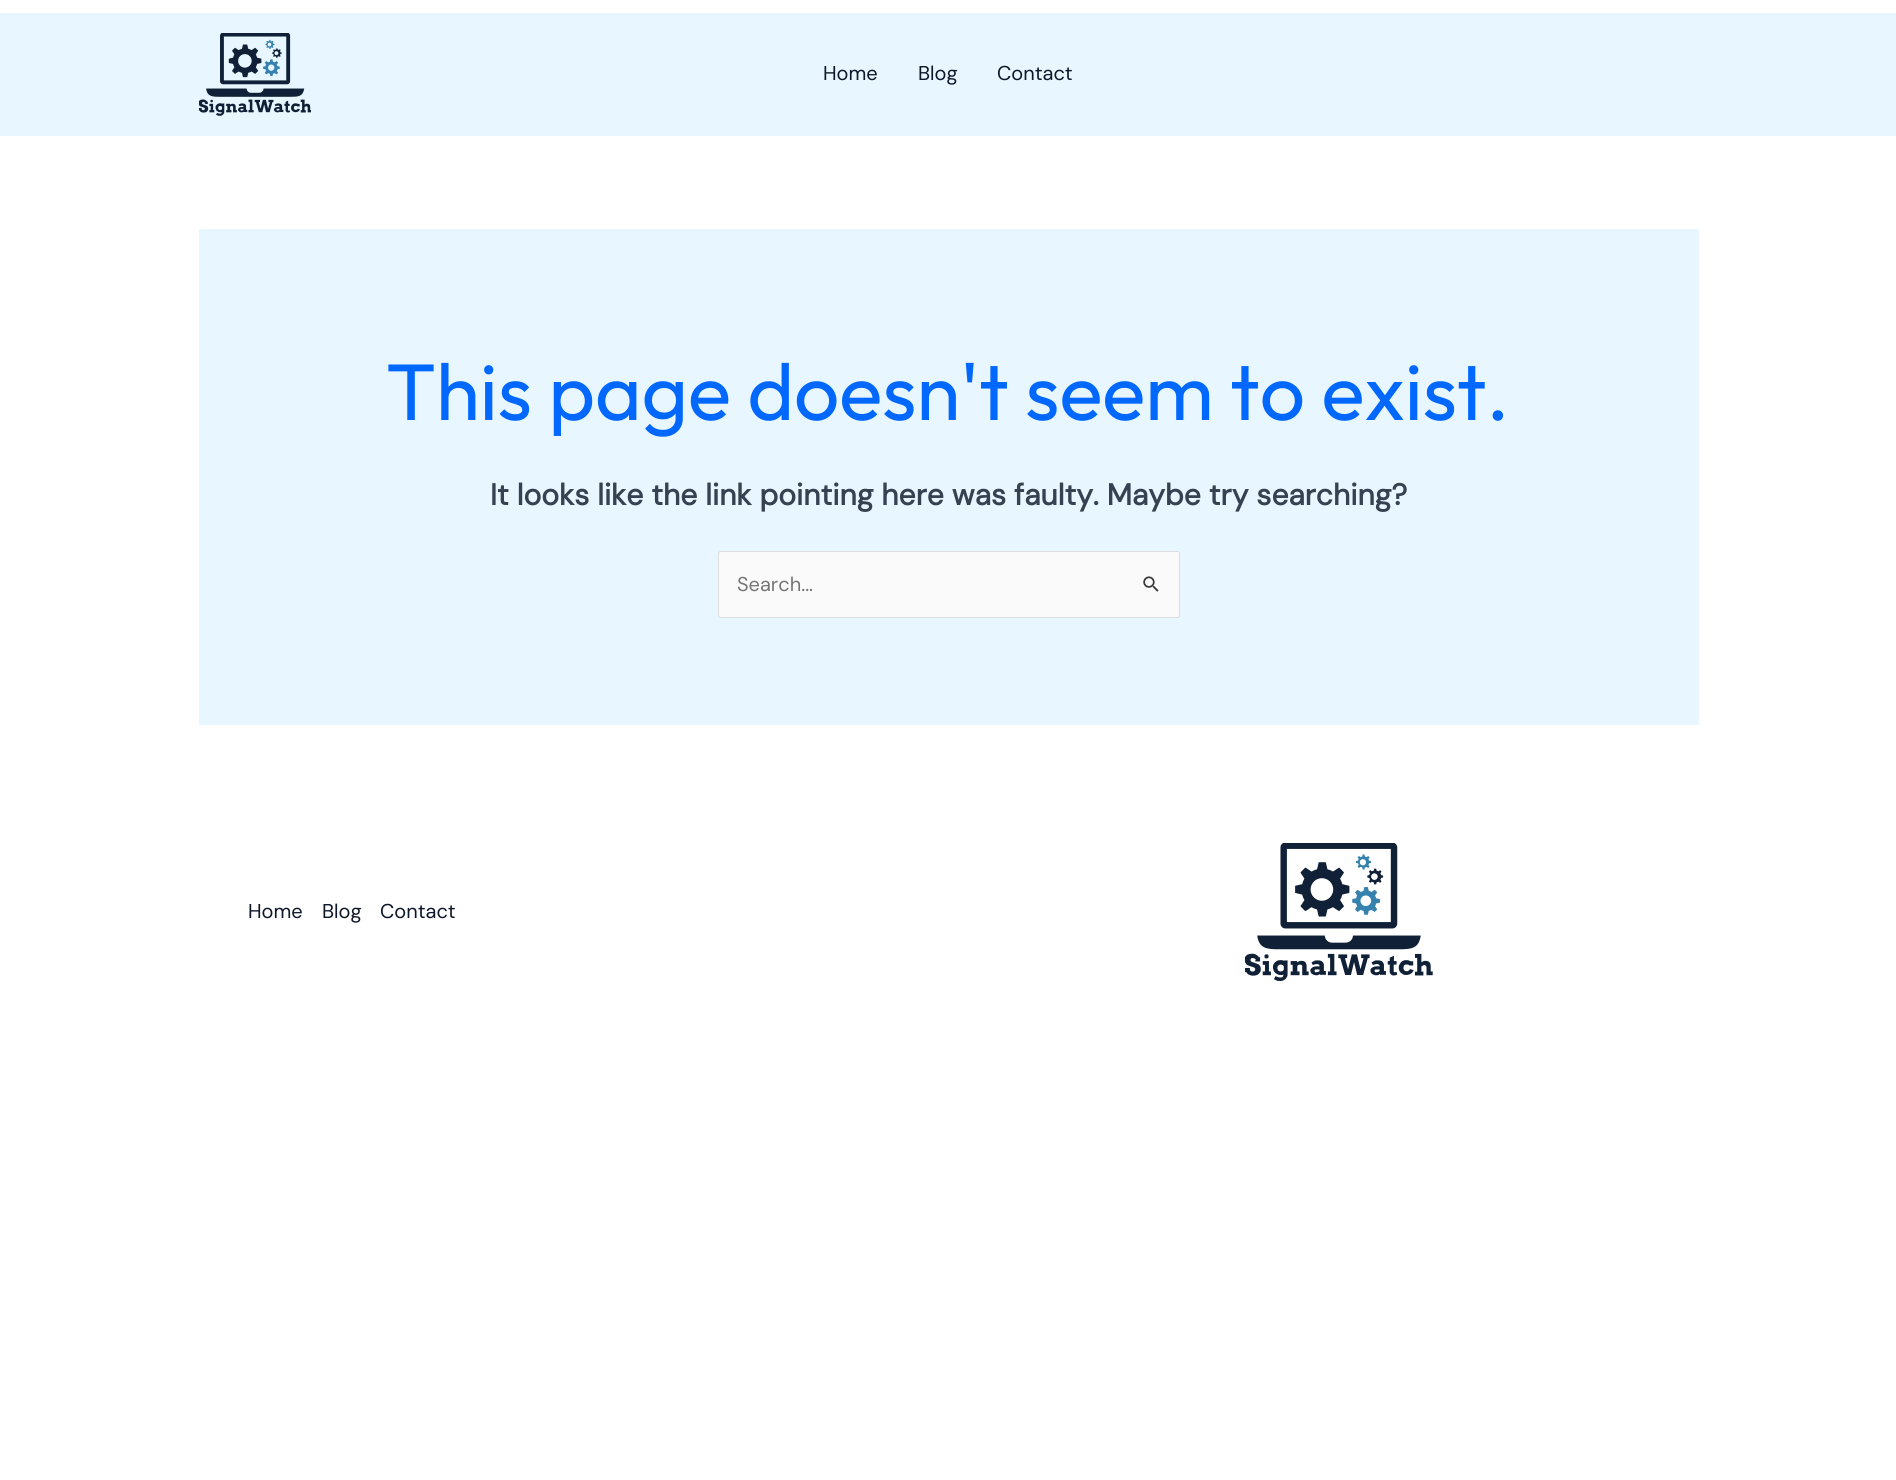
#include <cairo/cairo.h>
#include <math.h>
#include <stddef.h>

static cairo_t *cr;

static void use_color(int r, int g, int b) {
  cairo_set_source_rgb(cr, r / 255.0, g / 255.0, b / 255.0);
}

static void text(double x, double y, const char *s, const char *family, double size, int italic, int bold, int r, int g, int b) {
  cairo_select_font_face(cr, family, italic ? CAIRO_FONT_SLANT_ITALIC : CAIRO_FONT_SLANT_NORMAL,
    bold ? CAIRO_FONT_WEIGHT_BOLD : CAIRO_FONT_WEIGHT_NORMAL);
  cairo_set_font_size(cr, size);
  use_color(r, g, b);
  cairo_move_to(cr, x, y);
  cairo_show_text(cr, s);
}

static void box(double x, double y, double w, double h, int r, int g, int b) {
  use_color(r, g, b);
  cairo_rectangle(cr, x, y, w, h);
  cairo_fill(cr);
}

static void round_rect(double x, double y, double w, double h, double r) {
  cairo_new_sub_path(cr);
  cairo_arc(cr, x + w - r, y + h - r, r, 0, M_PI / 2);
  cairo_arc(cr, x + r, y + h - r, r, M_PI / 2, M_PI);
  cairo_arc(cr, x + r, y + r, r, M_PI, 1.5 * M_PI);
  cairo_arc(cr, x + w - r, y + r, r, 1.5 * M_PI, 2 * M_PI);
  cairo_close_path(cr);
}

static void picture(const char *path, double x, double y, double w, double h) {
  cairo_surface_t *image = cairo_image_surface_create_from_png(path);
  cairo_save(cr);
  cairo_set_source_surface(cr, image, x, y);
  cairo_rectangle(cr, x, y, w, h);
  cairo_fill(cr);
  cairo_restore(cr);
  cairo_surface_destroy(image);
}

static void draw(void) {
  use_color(255, 255, 255);
  cairo_paint(cr);
  box(0, 13, 1896, 123, 231, 246, 255);
  picture("img_01.png", 199, 33, 112, 83);
  box(199, 229, 1500, 496, 231, 246, 255);
  use_color(250, 250, 250);
  round_rect(718.5, 551.5, 461, 66, 2);
  cairo_fill_preserve(cr);
  use_color(221, 221, 221);
  cairo_set_line_width(cr, 1);
  cairo_stroke(cr);
  picture("img_02.png", 1143, 576, 16, 16);
  picture("img_03.png", 1245, 843, 188, 138);
  text(823, 80, "Home", "DM Sans", 20, 0, 0, 15, 23, 42);
  text(918, 80, "Blog", "DM Sans", 20, 0, 0, 15, 23, 42);
  text(997, 80, "Contact", "DM Sans", 20, 0, 0, 15, 23, 42);
  text(386, 420, "This page doesn't seem to exist.", "Outfit", 80, 0, 0, 0, 103, 255);
  text(490, 505, "It looks like the link pointing here was faulty. Maybe try searching?", "DM Sans", 30, 0, 1, 54, 65, 81);
  text(737, 591, "Search...", "DM Sans", 20, 0, 0, 117, 117, 117);
  text(248, 918, "Home", "DM Sans", 20, 0, 0, 15, 23, 42);
  text(322, 918, "Blog", "DM Sans", 20, 0, 0, 15, 23, 42);
  text(380, 918, "Contact", "DM Sans", 20, 0, 0, 15, 23, 42);
}

int main(void) {
  cairo_surface_t *surface = cairo_image_surface_create(CAIRO_FORMAT_RGB24, 1896, 1480);
  cr = cairo_create(surface);
  cairo_font_options_t *options = cairo_font_options_create();
  cairo_font_options_set_hint_metrics(options, CAIRO_HINT_METRICS_OFF);
  cairo_font_options_set_hint_style(options, CAIRO_HINT_STYLE_NONE);
  cairo_set_font_options(cr, options);
  cairo_set_miter_limit(cr, 4);
  draw();
  cairo_surface_write_to_png(surface, "out.png");
  cairo_font_options_destroy(options);
  cairo_destroy(cr);
  cairo_surface_destroy(surface);
  return 0;
}
